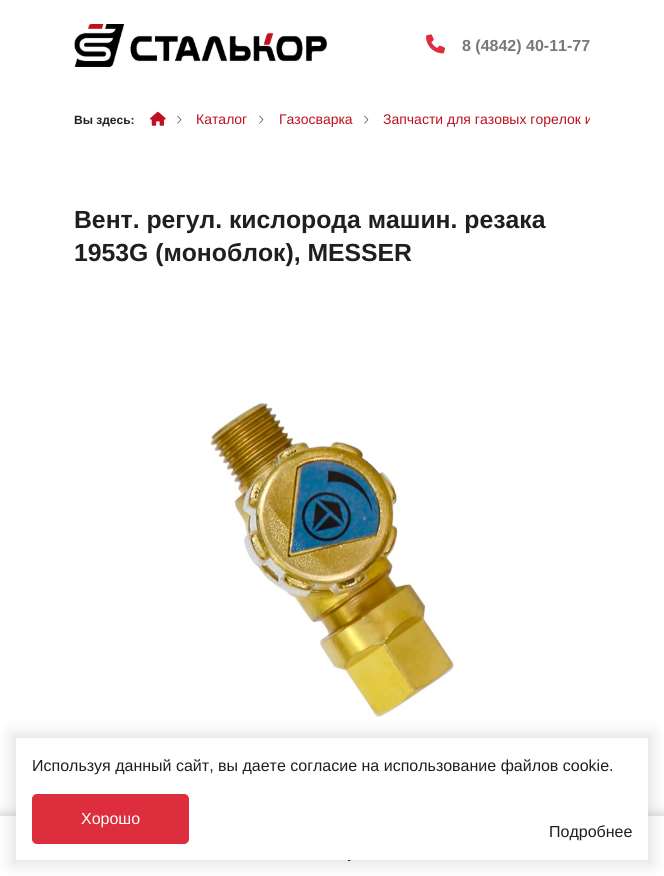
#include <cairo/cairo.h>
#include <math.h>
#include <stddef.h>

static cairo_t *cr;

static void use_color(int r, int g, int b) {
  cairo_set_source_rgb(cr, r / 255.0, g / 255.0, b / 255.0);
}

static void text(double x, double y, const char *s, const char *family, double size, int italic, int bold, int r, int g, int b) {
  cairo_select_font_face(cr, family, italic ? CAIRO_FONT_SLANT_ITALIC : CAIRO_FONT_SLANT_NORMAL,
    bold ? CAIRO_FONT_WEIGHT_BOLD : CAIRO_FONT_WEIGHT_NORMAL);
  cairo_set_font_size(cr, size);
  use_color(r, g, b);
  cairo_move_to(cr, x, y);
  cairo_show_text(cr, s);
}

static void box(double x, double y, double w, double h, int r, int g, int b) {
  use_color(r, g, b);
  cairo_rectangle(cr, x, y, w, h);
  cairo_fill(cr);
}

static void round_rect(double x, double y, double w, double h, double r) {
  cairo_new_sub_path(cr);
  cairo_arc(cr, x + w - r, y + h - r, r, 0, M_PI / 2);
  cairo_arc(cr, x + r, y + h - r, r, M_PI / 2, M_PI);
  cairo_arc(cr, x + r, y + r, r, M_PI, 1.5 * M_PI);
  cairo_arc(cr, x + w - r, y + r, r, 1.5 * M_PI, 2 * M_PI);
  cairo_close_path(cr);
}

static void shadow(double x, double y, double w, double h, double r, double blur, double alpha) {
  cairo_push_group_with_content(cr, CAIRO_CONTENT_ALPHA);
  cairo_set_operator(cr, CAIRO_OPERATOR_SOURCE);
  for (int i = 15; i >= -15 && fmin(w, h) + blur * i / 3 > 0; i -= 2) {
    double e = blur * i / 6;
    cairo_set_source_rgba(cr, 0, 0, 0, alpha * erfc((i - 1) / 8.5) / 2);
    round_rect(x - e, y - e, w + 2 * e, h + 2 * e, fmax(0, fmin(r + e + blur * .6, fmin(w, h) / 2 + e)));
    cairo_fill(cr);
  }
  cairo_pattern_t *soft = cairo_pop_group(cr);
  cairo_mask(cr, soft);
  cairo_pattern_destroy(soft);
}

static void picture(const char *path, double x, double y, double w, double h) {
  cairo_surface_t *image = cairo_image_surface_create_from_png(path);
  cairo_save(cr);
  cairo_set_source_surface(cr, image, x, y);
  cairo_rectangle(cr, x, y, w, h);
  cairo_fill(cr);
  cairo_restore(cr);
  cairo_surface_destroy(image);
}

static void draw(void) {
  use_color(255, 255, 255);
  cairo_paint(cr);
  picture("img_01.png", 74, 24, 253, 43);
  picture("img_02.png", 426, 34, 19, 20);
  picture("img_03.png", 150, 111, 16, 15);
  picture("img_04.png", 177, 115, 5, 9);
  picture("img_04.png", 259, 115, 5, 9);
  picture("img_04.png", 364, 115, 5, 9);
  picture("img_05.png", 210, 402, 245, 315);
  use_color(0, 0, 0);
  shadow(0, 813, 664, 60, 0, 4.5, 0.15);
  box(0, 816, 664, 60, 255, 255, 255);
  picture("img_06.png", 347, 860, 4, 1);
  use_color(0, 0, 0);
  shadow(10, 732, 644, 134, 0, 7, 0.1);
  box(16, 738, 632, 122, 255, 255, 255);
  use_color(220, 46, 60);
  round_rect(32.5, 794.5, 156, 49, 4.5);
  cairo_fill_preserve(cr);
  cairo_set_line_width(cr, 1);
  cairo_stroke(cr);
  text(462, 51, "8 (4842) 40-11-77", "Liberation Sans", 16, 0, 1, 120, 120, 120);
  text(74, 124, "Вы здесь:", "Liberation Sans", 12, 0, 1, 31, 31, 31);
  text(196, 124, "Каталог", "Liberation Sans", 14, 0, 0, 190, 16, 30);
  text(279, 124, "Газосварка", "Liberation Sans", 14, 0, 0, 190, 16, 30);
  cairo_save(cr);
  cairo_rectangle(cr, 74, 91, 516, 56);
  cairo_clip(cr);
  text(383, 124, "Запчасти для газовых горелок и", "Liberation Sans", 14, 0, 0, 190, 16, 30);
  cairo_restore(cr);
  text(74, 228, "Вент. регул. кислорода машин. резака", "Liberation Sans", 24.75, 0, 1, 31, 31, 31);
  text(74, 261, "1953G (моноблок), MESSER", "Liberation Sans", 24.75, 0, 1, 31, 31, 31);
  text(32, 771, "Используя данный сайт, вы даете согласие на использование файлов cookie.", "Liberation Sans", 16, 0, 0, 31, 31, 31);
  text(81, 824, "Хорошо", "Liberation Sans", 16, 0, 0, 255, 255, 255);
  text(549, 837, "Подробнее", "Liberation Sans", 16, 0, 0, 31, 31, 31);
}

int main(void) {
  cairo_surface_t *surface = cairo_image_surface_create(CAIRO_FORMAT_RGB24, 664, 876);
  cr = cairo_create(surface);
  cairo_font_options_t *options = cairo_font_options_create();
  cairo_font_options_set_hint_metrics(options, CAIRO_HINT_METRICS_OFF);
  cairo_font_options_set_hint_style(options, CAIRO_HINT_STYLE_NONE);
  cairo_set_font_options(cr, options);
  cairo_set_miter_limit(cr, 4);
  draw();
  cairo_surface_write_to_png(surface, "out.png");
  cairo_font_options_destroy(options);
  cairo_destroy(cr);
  cairo_surface_destroy(surface);
  return 0;
}
